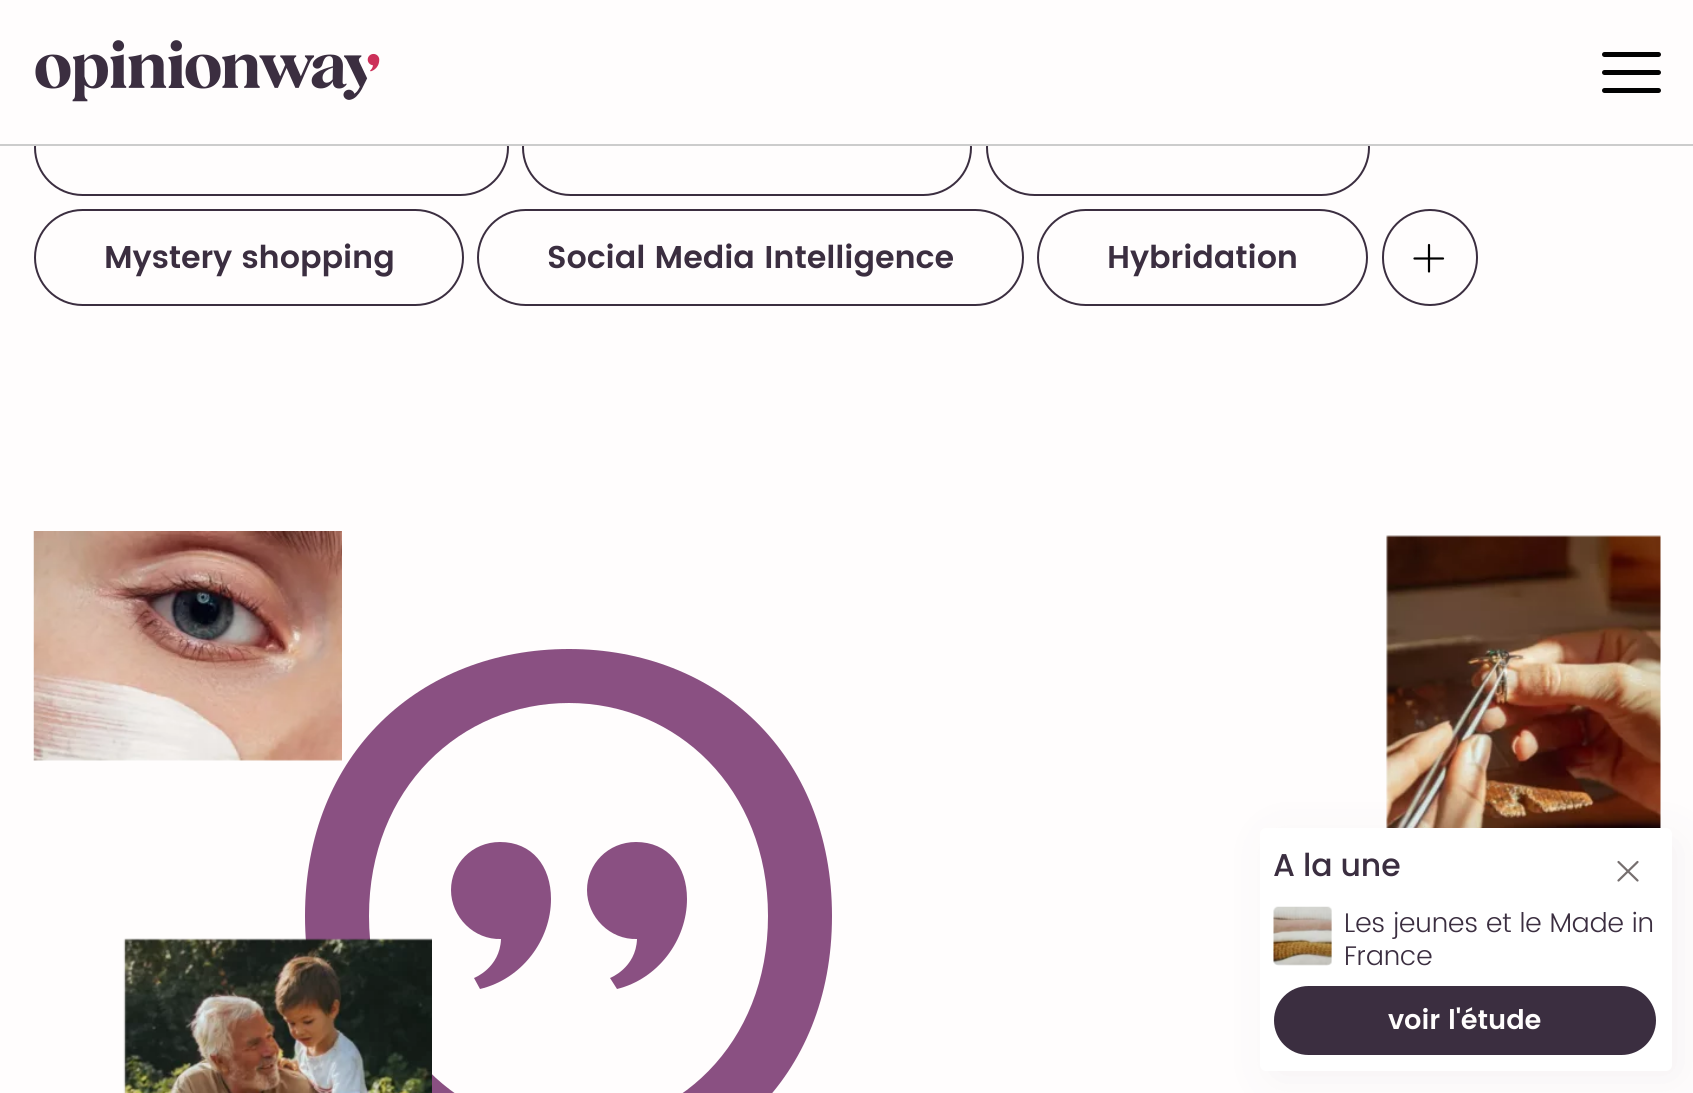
#include <cairo/cairo.h>
#include <math.h>
#include <stddef.h>

static cairo_t *cr;

static void use_color(int r, int g, int b) {
  cairo_set_source_rgb(cr, r / 255.0, g / 255.0, b / 255.0);
}

static void spaced_text(double x, double y, const char *s, double letter, double word) {
  cairo_move_to(cr, x, y);
  while (*s) {
    char ch[5] = {0};
    int n = 0;
    do ch[n++] = *s++; while ((*s & 0xC0) == 0x80);
    cairo_show_text(cr, ch);
    cairo_rel_move_to(cr, letter + word * (*ch == ' '), 0);
  }
}

static void box(double x, double y, double w, double h, int r, int g, int b) {
  use_color(r, g, b);
  cairo_rectangle(cr, x, y, w, h);
  cairo_fill(cr);
}

static void round_rect(double x, double y, double w, double h, double r) {
  cairo_new_sub_path(cr);
  cairo_arc(cr, x + w - r, y + h - r, r, 0, M_PI / 2);
  cairo_arc(cr, x + r, y + h - r, r, M_PI / 2, M_PI);
  cairo_arc(cr, x + r, y + r, r, M_PI, 1.5 * M_PI);
  cairo_arc(cr, x + w - r, y + r, r, 1.5 * M_PI, 2 * M_PI);
  cairo_close_path(cr);
}

static void shadow(double x, double y, double w, double h, double r, double blur, double alpha) {
  cairo_push_group_with_content(cr, CAIRO_CONTENT_ALPHA);
  cairo_set_operator(cr, CAIRO_OPERATOR_SOURCE);
  for (int i = 15; i >= -15 && fmin(w, h) + blur * i / 3 > 0; i -= 2) {
    double e = blur * i / 6;
    cairo_set_source_rgba(cr, 0, 0, 0, alpha * erfc((i - 1) / 8.5) / 2);
    round_rect(x - e, y - e, w + 2 * e, h + 2 * e, fmax(0, fmin(r + e + blur * .6, fmin(w, h) / 2 + e)));
    cairo_fill(cr);
  }
  cairo_pattern_t *soft = cairo_pop_group(cr);
  cairo_mask(cr, soft);
  cairo_pattern_destroy(soft);
}

static void picture(const char *path, double x, double y, double w, double h) {
  cairo_surface_t *image = cairo_image_surface_create_from_png(path);
  cairo_save(cr);
  cairo_set_source_surface(cr, image, x, y);
  cairo_rectangle(cr, x, y, w, h);
  cairo_fill(cr);
  cairo_restore(cr);
  cairo_surface_destroy(image);
}

static void draw(void) {
  use_color(255, 253, 253);
  cairo_paint(cr);
  round_rect(35, 100, 473, 95, 47.5);
  use_color(59, 46, 64);
  cairo_stroke(cr);
  round_rect(523, 100, 448, 95, 47.5);
  cairo_stroke(cr);
  round_rect(987, 100, 382, 95, 47.5);
  cairo_stroke(cr);
  box(34, 99, 1336, 45, 255, 253, 253);
  box(0, 144, 1693, 2, 204, 204, 204);
  picture("img_01.png", 35, 40, 345, 62);
  use_color(2, 2, 2);
  round_rect(1602, 52, 59, 5, 2.5);
  cairo_fill(cr);
  round_rect(1602, 70, 59, 5, 2.5);
  cairo_fill(cr);
  round_rect(1602, 88, 59, 5, 2.5);
  cairo_fill(cr);
  round_rect(35, 210, 428, 95, 47.5);
  use_color(59, 46, 64);
  cairo_stroke(cr);
  round_rect(478, 210, 545, 95, 47.5);
  cairo_stroke(cr);
  round_rect(1038, 210, 329, 95, 47.5);
  cairo_stroke(cr);
  round_rect(1383, 210, 94, 95, 47);
  cairo_stroke(cr);
  cairo_new_path(cr);
  cairo_move_to(cr, 1443, 258.5);
  cairo_line_to(cr, 1414.5, 258.5);
  cairo_move_to(cr, 1429, 245);
  cairo_line_to(cr, 1429, 271.5);
  use_color(0, 0, 0);
  cairo_set_line_width(cr, 2.2);
  cairo_set_line_cap(cr, CAIRO_LINE_CAP_ROUND);
  cairo_stroke(cr);
  use_color(138, 80, 130);
  cairo_new_path(cr);
  cairo_move_to(cr, 569, 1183);
  cairo_curve_to(cr, 420, 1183, 305, 1079, 305, 916);
  cairo_curve_to(cr, 305, 754, 420, 649, 569, 649);
  cairo_curve_to(cr, 717, 649, 832, 754, 832, 916);
  cairo_curve_to(cr, 832, 1079, 717, 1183, 569, 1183);
  cairo_close_path(cr);
  cairo_move_to(cr, 569, 703);
  cairo_curve_to(cr, 461, 703, 369, 788, 369, 916);
  cairo_curve_to(cr, 369, 1045, 461, 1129, 569, 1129);
  cairo_curve_to(cr, 676, 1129, 768, 1045, 768, 916);
  cairo_curve_to(cr, 768, 788, 676, 703, 569, 703);
  cairo_close_path(cr);
  cairo_fill(cr);
  picture("img_02.png", 33, 531, 309, 230);
  picture("img_03.png", 1386, 535, 275, 293);
  cairo_new_path(cr);
  cairo_move_to(cr, 637, 939);
  cairo_curve_to(cr, 636, 968, 610, 978, 610, 978);
  cairo_line_to(cr, 617, 989);
  cairo_curve_to(cr, 658, 979, 687, 940, 687, 899);
  cairo_curve_to(cr, 687, 866, 668, 842, 636, 842);
  cairo_curve_to(cr, 608, 842, 587, 864, 587, 890);
  cairo_curve_to(cr, 587, 917, 610, 940, 637, 939);
  cairo_close_path(cr);
  cairo_fill(cr);
  cairo_new_path(cr);
  cairo_move_to(cr, 501, 939);
  cairo_curve_to(cr, 500, 968, 474, 978, 474, 978);
  cairo_line_to(cr, 480, 989);
  cairo_curve_to(cr, 522, 979, 551, 940, 551, 899);
  cairo_curve_to(cr, 551, 866, 532, 842, 500, 842);
  cairo_curve_to(cr, 472, 842, 451, 864, 451, 890);
  cairo_curve_to(cr, 451, 917, 474, 940, 501, 939);
  cairo_close_path(cr);
  cairo_fill(cr);
  picture("img_04.png", 123, 938, 309, 155);
  use_color(59, 46, 64);
  shadow(1269, 837, 412, 243, 6, 23.5, 0.05);
  use_color(255, 255, 255);
  round_rect(1260, 828, 412, 243, 6);
  cairo_fill(cr);
  cairo_new_path(cr);
  cairo_move_to(cr, 1637.5, 862);
  cairo_line_to(cr, 1618.5, 880.5);
  cairo_move_to(cr, 1618.5, 862);
  cairo_line_to(cr, 1637.5, 880.5);
  use_color(118, 111, 111);
  cairo_stroke(cr);
  picture("img_05.png", 1273, 906, 59, 60);
  use_color(59, 46, 64);
  round_rect(1274, 986, 382, 69, 34.5);
  cairo_fill(cr);
  cairo_select_font_face(cr, "Poppins SemiBold", CAIRO_FONT_SLANT_NORMAL, CAIRO_FONT_WEIGHT_NORMAL);
  cairo_set_font_size(cr, 31.5);
  spaced_text(104, 268, "Mystery shopping", -0.1, 0);
  spaced_text(547, 268, "Social Media Intelligence", -0.1, 0);
  spaced_text(1107, 268, "Hybridation", -0.1, 0);
  cairo_select_font_face(cr, "Poppins Medium", CAIRO_FONT_SLANT_NORMAL, CAIRO_FONT_WEIGHT_NORMAL);
  spaced_text(1273, 876, "A la une", -0.1, 0);
  cairo_select_font_face(cr, "Poppins Light", CAIRO_FONT_SLANT_NORMAL, CAIRO_FONT_WEIGHT_NORMAL);
  cairo_set_font_size(cr, 27);
  spaced_text(1344, 932, "Les jeunes et le Made in", -0.1, 0);
  spaced_text(1344, 965, "France", -0.1, 0);
  cairo_select_font_face(cr, "Poppins SemiBold", CAIRO_FONT_SLANT_NORMAL, CAIRO_FONT_WEIGHT_NORMAL);
  use_color(255, 253, 253);
  spaced_text(1388, 1029, "voir l'étude", -0.1, 0);
}

int main(void) {
  cairo_surface_t *surface = cairo_image_surface_create(CAIRO_FORMAT_RGB24, 1693, 1093);
  cr = cairo_create(surface);
  cairo_font_options_t *options = cairo_font_options_create();
  cairo_font_options_set_hint_metrics(options, CAIRO_HINT_METRICS_OFF);
  cairo_font_options_set_hint_style(options, CAIRO_HINT_STYLE_NONE);
  cairo_set_font_options(cr, options);
  cairo_set_miter_limit(cr, 4);
  draw();
  cairo_surface_write_to_png(surface, "out.png");
  cairo_font_options_destroy(options);
  cairo_destroy(cr);
  cairo_surface_destroy(surface);
  return 0;
}
